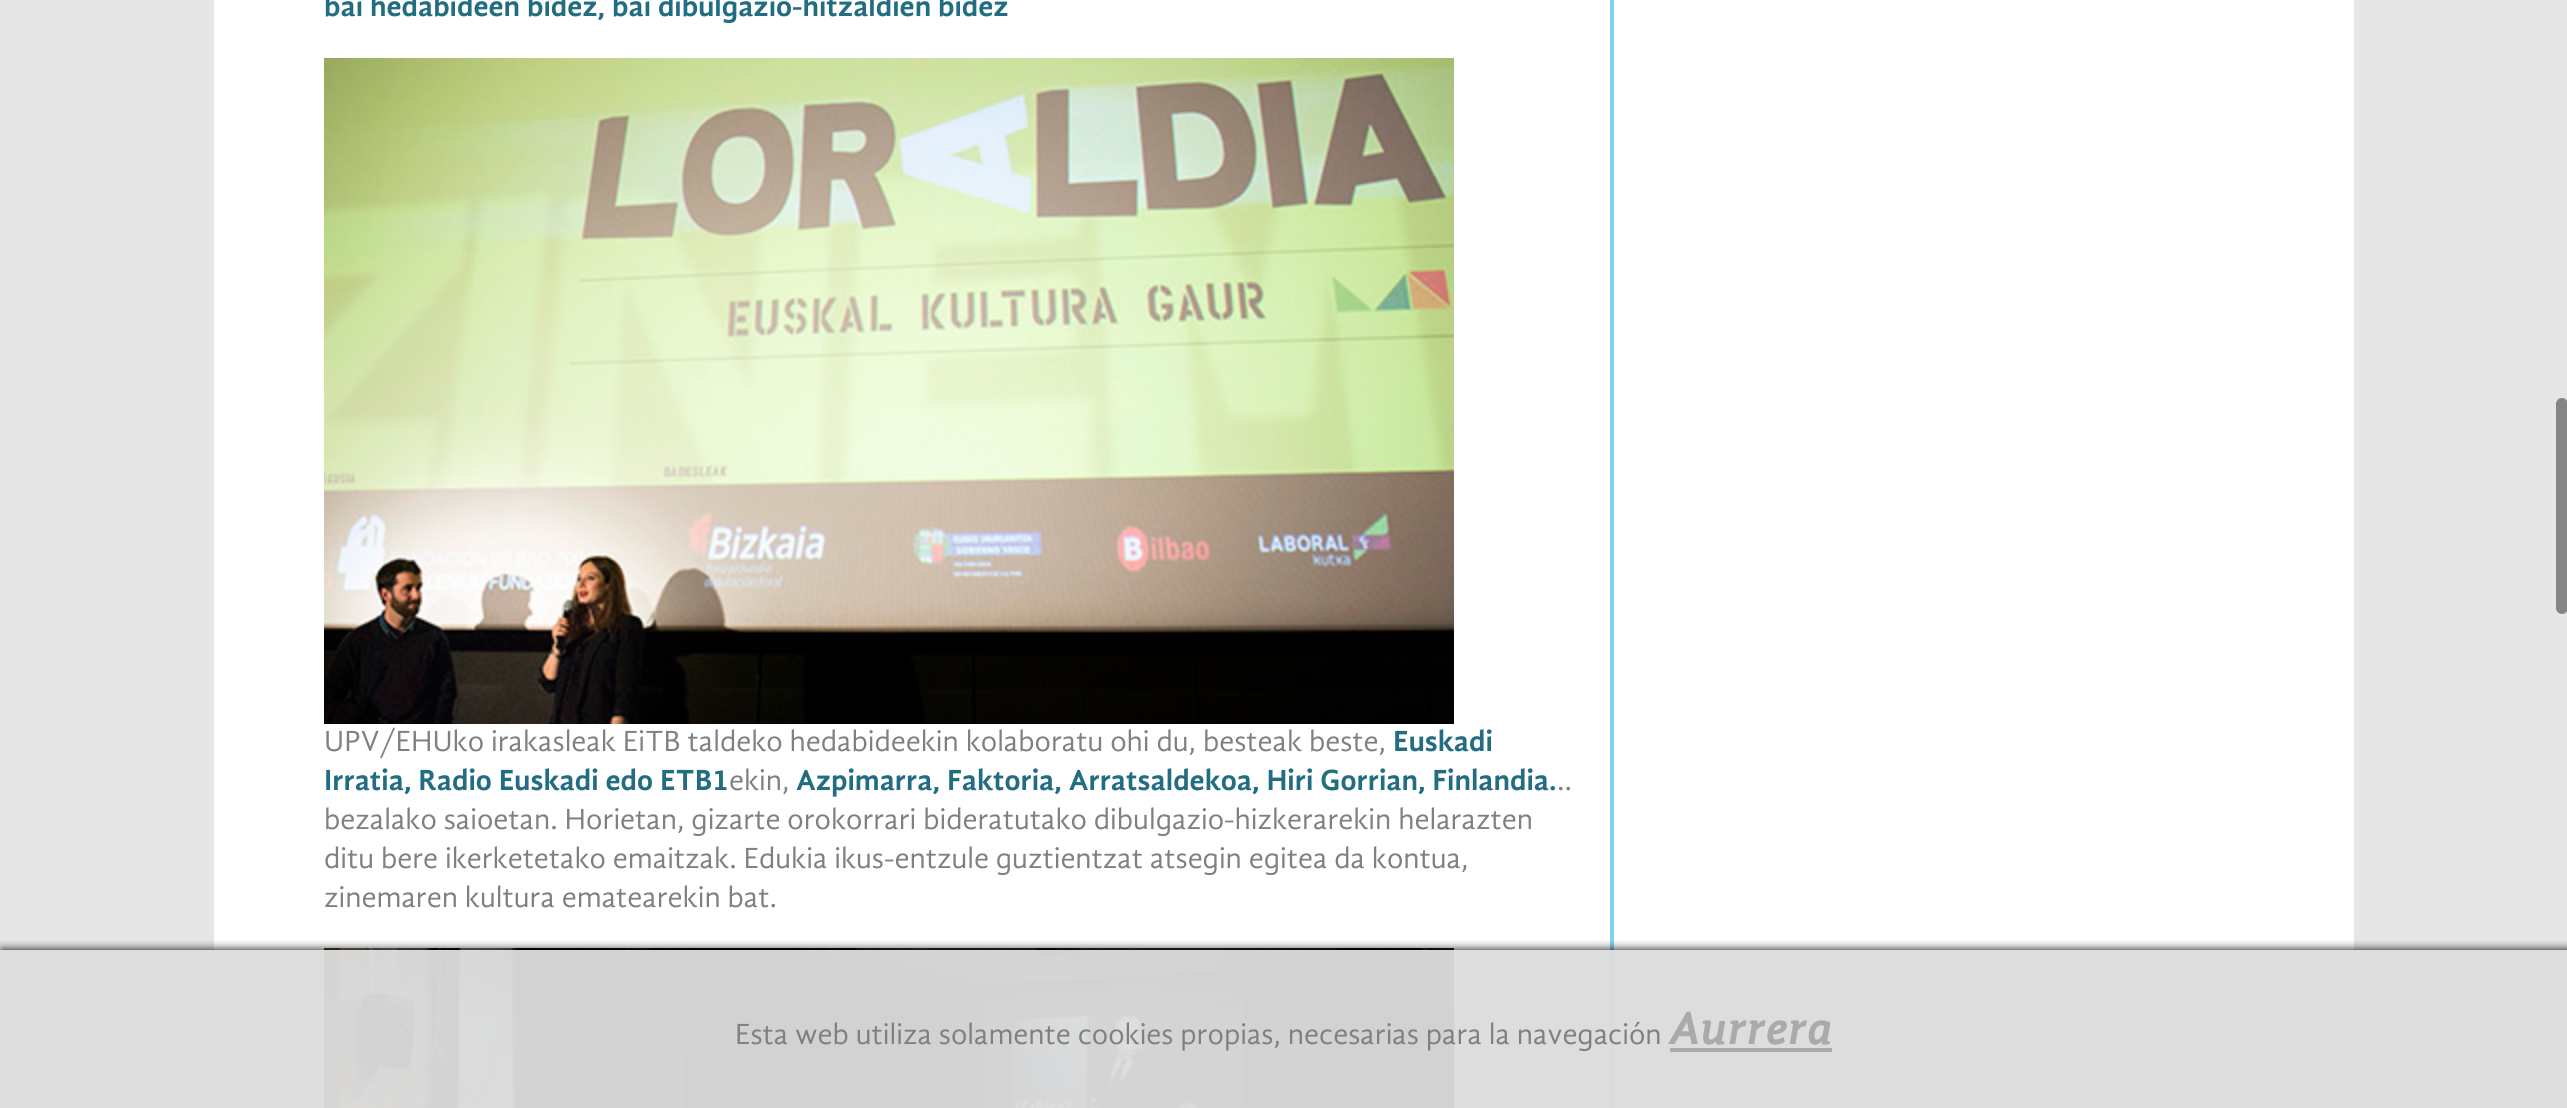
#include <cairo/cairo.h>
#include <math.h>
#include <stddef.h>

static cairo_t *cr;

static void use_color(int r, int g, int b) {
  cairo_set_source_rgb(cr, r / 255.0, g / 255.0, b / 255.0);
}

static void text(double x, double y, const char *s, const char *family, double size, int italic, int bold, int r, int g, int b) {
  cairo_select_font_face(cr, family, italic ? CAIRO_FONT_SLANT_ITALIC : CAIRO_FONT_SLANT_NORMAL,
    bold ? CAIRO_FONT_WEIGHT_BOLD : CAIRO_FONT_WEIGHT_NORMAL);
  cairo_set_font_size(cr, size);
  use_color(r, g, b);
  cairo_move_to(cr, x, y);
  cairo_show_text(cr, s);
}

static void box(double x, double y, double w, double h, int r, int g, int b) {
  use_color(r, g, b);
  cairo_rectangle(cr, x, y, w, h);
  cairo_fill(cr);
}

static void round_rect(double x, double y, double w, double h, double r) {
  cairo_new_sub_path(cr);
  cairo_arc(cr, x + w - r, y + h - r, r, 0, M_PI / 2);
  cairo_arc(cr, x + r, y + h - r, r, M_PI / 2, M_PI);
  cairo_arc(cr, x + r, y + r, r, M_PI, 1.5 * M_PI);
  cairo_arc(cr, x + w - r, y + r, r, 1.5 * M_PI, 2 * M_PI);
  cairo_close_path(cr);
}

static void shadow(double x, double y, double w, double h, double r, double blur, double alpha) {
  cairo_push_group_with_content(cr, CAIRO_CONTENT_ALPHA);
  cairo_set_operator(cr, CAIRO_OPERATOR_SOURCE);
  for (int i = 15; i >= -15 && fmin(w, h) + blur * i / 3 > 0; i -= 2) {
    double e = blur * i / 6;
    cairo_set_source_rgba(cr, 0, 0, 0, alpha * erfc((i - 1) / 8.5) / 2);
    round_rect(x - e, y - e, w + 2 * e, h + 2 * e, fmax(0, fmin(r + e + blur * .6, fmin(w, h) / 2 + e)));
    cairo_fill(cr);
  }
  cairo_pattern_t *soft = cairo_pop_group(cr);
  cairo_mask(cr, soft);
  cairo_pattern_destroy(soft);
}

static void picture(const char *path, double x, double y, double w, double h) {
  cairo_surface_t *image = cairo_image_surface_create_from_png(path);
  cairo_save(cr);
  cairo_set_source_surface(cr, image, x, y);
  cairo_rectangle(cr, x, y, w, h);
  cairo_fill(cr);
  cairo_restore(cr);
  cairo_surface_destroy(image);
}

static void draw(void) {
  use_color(230, 230, 230);
  cairo_paint(cr);
  box(0, 950, 2567, 158, 221, 221, 221);
  box(214, 0, 2140, 950, 255, 255, 255);
  box(1610, 0, 4, 950, 128, 210, 239);
  box(1610, 950, 4, 158, 216, 220, 222);
  picture("img_01.png", 324, 58, 1130, 666);
  picture("img_02.png", 324, 948, 1130, 160);
  use_color(133, 133, 133);
  round_rect(2556, 398, 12, 216, 6);
  cairo_fill(cr);
  cairo_save(cr);
  cairo_rectangle(cr, 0, 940, 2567, 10);
  cairo_clip(cr);
  use_color(0, 0, 0);
  shadow(2, 950, 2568, 158, 0, 5, 1);
  cairo_restore(cr);
  box(1670, 1048, 162, 4, 170, 170, 170);
  text(324, 16, "bai hedabideen bidez, bai dibulgazio-hitzaldien bidez", "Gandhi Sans", 30, 0, 1, 34, 109, 130);
  text(324, 751, "UPV/EHUko irakasleak EiTB taldeko hedabideekin kolaboratu ohi du, besteak beste,", "Gandhi Sans", 30, 0, 0, 128, 128, 128);
  text(1393, 751, "Euskadi", "Gandhi Sans", 30, 0, 1, 34, 109, 130);
  text(324, 790, "Irratia, Radio Euskadi edo ETB1", "Gandhi Sans", 30, 0, 1, 34, 109, 130);
  text(729, 790, "ekin,", "Gandhi Sans", 30, 0, 0, 128, 128, 128);
  text(796, 790, "Azpimarra, Faktoria, Arratsaldekoa, Hiri Gorrian, Finlandia.", "Gandhi Sans", 30, 0, 1, 34, 109, 130);
  text(1557, 790, "..", "Gandhi Sans", 30, 0, 0, 128, 128, 128);
  text(324, 829, "bezalako saioetan. Horietan, gizarte orokorrari bideratutako dibulgazio-hizkerarekin helarazten", "Gandhi Sans", 30, 0, 0, 128, 128, 128);
  text(324, 868, "ditu bere ikerketetako emaitzak. Edukia ikus-entzule guztientzat atsegin egitea da kontua,", "Gandhi Sans", 30, 0, 0, 128, 128, 128);
  text(324, 907, "zinemaren kultura ematearekin bat.", "Gandhi Sans", 30, 0, 0, 128, 128, 128);
  text(735, 1044, "Esta web utiliza solamente cookies propias, necesarias para la navegación", "Gandhi Sans", 30, 0, 0, 128, 128, 128);
  text(1669, 1044, "Aurrera", "Gandhi Sans", 48, 1, 1, 170, 170, 170);
}

int main(void) {
  cairo_surface_t *surface = cairo_image_surface_create(CAIRO_FORMAT_RGB24, 2567, 1108);
  cr = cairo_create(surface);
  cairo_font_options_t *options = cairo_font_options_create();
  cairo_font_options_set_hint_metrics(options, CAIRO_HINT_METRICS_OFF);
  cairo_font_options_set_hint_style(options, CAIRO_HINT_STYLE_NONE);
  cairo_set_font_options(cr, options);
  cairo_set_miter_limit(cr, 4);
  draw();
  cairo_surface_write_to_png(surface, "out.png");
  cairo_font_options_destroy(options);
  cairo_destroy(cr);
  cairo_surface_destroy(surface);
  return 0;
}
